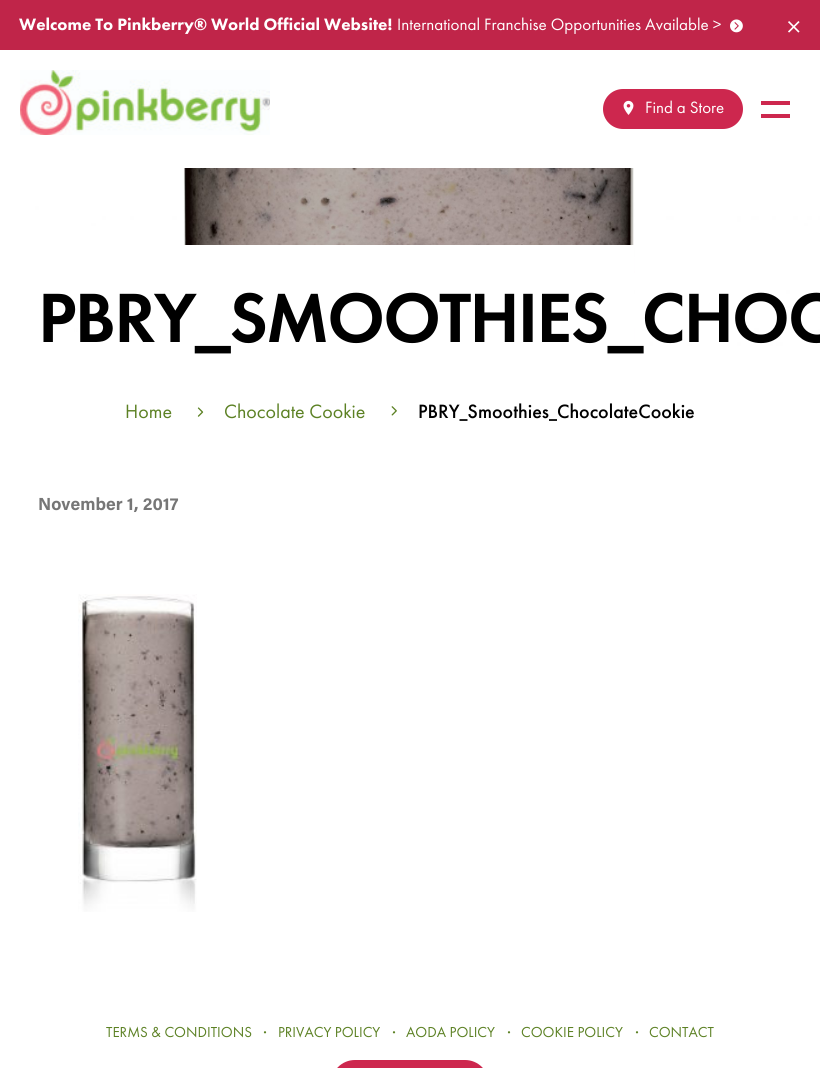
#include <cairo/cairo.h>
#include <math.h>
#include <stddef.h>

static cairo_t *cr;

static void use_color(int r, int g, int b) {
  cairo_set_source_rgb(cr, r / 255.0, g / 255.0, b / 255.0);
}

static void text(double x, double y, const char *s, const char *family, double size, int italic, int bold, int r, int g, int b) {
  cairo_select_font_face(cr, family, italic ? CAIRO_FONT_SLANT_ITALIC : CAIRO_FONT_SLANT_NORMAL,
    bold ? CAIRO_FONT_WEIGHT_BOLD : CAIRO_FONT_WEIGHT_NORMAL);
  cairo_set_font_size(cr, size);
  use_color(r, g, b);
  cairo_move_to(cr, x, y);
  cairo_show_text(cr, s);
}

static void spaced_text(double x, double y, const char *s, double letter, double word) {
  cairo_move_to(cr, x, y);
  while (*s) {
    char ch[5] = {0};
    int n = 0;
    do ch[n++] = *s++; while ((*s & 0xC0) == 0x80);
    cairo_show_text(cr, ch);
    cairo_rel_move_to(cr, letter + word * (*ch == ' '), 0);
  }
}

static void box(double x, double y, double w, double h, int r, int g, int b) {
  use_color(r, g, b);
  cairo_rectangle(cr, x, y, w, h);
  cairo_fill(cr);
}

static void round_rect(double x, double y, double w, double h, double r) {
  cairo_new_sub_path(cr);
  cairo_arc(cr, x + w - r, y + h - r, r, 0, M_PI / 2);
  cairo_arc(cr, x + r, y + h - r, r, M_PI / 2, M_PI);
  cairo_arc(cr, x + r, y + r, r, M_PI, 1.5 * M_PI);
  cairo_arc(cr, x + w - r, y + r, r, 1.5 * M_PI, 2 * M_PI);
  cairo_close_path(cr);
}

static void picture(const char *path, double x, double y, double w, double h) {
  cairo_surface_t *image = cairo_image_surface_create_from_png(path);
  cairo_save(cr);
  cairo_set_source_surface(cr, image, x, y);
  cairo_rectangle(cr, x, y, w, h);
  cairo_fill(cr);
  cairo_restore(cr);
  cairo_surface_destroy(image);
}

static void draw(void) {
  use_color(255, 255, 255);
  cairo_paint(cr);
  box(0, 0, 820, 50, 192, 37, 73);
  picture("img_01.png", 730, 19, 13, 14);
  picture("img_02.png", 788, 21, 12, 12);
  picture("img_03.png", 20, 70, 250, 65);
  use_color(205, 39, 78);
  round_rect(603, 89, 140, 40, 20);
  cairo_fill(cr);
  picture("img_04.png", 623, 100, 11, 15);
  box(761, 101, 29, 4, 205, 39, 78);
  box(761, 114, 29, 4, 205, 39, 78);
  picture("img_05.png", 0, 168, 820, 186);
  box(183, 245, 451, 109, 255, 255, 255);
  picture("img_06.png", 197, 407, 7, 10);
  picture("img_07.png", 391, 406, 6, 10);
  picture("img_08.png", 78, 594, 119, 318);
  use_color(205, 39, 78);
  round_rect(331, 1060, 158, 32, 24);
  cairo_fill(cr);
  text(19, 30, "Welcome To Pinkberry® World Official Website!", "Futura PT Black", 17.1, 0, 0, 255, 255, 255);
  text(397, 30, "International Franchise Opportunities Available >", "Futura PT", 17.1, 0, 0, 255, 255, 255);
  text(645, 113, "Find a Store", "Futura PT", 17, 0, 0, 255, 255, 255);
  cairo_select_font_face(cr, "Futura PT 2 Medium", CAIRO_FONT_SLANT_NORMAL, CAIRO_FONT_WEIGHT_NORMAL);
  cairo_set_font_size(cr, 72.25);
  use_color(0, 0, 0);
  spaced_text(38, 342, "PBRY_SMOOTHIES_CHOC", -1.75, 0);
  text(125, 418, "Home", "Futura PT", 20, 0, 0, 92, 129, 36);
  text(224, 418, "Chocolate Cookie", "Futura PT", 20, 0, 0, 92, 129, 36);
  text(418, 418, "PBRY_Smoothies_ChocolateCookie", "Futura PT Medium", 20, 0, 0, 0, 0, 0);
  text(38, 510, "November 1, 2017", "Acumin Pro", 17.5, 0, 1, 118, 118, 118);
  text(106, 1037, "TERMS & CONDITIONS", "Futura PT", 15, 0, 0, 92, 129, 36);
  text(261, 1035, "•", "Futura PT", 8, 0, 0, 92, 129, 36);
  text(278, 1037, "PRIVACY POLICY", "Futura PT", 15, 0, 0, 92, 129, 36);
  text(390, 1035, "•", "Futura PT", 8, 0, 0, 92, 129, 36);
  text(406, 1037, "AODA POLICY", "Futura PT", 15, 0, 0, 92, 129, 36);
  text(505, 1035, "•", "Futura PT", 8, 0, 0, 92, 129, 36);
  text(521, 1037, "COOKIE POLICY", "Futura PT", 15, 0, 0, 92, 129, 36);
  text(633, 1035, "•", "Futura PT", 8, 0, 0, 92, 129, 36);
  text(649, 1037, "CONTACT", "Futura PT", 15, 0, 0, 92, 129, 36);
}

int main(void) {
  cairo_surface_t *surface = cairo_image_surface_create(CAIRO_FORMAT_RGB24, 820, 1068);
  cr = cairo_create(surface);
  cairo_font_options_t *options = cairo_font_options_create();
  cairo_font_options_set_hint_metrics(options, CAIRO_HINT_METRICS_OFF);
  cairo_font_options_set_hint_style(options, CAIRO_HINT_STYLE_NONE);
  cairo_set_font_options(cr, options);
  cairo_set_miter_limit(cr, 4);
  draw();
  cairo_surface_write_to_png(surface, "out.png");
  cairo_font_options_destroy(options);
  cairo_destroy(cr);
  cairo_surface_destroy(surface);
  return 0;
}
